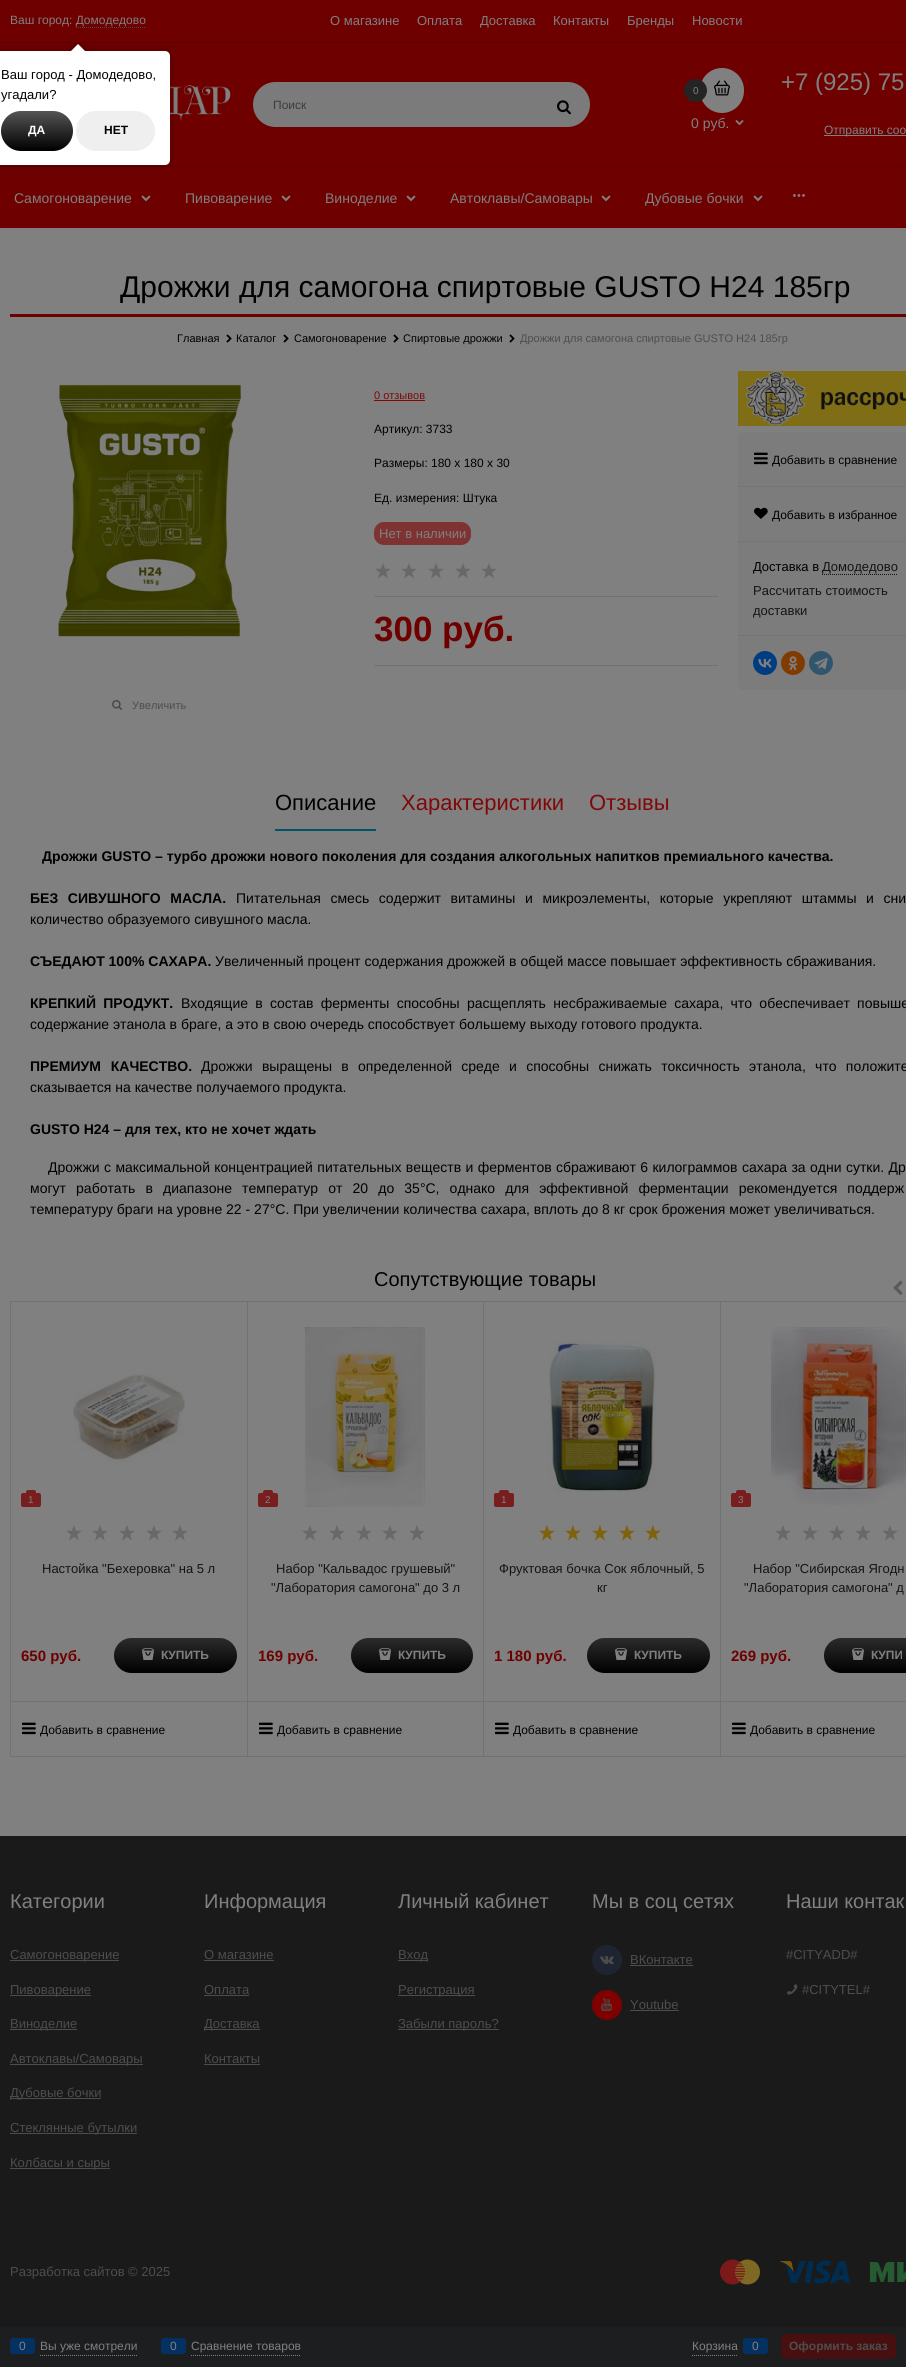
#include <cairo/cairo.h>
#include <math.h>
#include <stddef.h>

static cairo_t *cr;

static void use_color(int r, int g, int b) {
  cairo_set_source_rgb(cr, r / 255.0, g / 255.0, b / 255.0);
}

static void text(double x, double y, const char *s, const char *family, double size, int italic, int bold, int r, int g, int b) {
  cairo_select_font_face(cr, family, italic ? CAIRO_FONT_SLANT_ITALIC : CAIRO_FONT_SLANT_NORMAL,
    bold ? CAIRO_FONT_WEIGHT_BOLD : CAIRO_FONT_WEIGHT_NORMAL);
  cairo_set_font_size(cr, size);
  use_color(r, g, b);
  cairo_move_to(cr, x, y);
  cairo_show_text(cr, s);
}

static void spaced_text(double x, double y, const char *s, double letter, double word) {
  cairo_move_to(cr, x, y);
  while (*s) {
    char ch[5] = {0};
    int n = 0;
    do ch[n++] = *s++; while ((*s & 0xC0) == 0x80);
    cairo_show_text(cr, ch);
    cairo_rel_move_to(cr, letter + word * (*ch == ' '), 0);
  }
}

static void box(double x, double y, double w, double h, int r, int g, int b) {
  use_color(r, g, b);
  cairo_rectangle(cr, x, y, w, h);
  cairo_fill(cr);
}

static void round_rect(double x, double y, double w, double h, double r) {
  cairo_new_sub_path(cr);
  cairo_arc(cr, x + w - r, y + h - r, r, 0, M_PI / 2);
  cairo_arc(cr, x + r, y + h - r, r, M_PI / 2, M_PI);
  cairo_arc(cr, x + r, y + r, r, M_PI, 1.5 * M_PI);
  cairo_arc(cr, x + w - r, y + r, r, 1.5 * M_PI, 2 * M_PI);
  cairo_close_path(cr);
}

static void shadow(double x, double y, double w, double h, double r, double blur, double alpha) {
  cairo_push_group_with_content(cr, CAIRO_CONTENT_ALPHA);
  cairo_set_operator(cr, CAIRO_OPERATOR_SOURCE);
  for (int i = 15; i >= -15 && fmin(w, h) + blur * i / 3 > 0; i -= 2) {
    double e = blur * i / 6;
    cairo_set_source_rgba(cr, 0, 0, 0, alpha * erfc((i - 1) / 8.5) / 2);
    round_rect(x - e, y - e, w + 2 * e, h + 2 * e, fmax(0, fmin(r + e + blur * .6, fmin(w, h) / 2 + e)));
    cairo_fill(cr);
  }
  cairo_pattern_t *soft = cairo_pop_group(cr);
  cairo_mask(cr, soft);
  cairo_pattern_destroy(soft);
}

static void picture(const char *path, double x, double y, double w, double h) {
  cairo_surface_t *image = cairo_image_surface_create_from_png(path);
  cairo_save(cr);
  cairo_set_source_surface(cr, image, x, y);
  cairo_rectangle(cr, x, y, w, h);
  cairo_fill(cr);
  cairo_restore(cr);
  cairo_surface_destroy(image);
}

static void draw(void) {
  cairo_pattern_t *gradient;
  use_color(128, 128, 128);
  cairo_paint(cr);
  box(0, 0, 906, 166, 110, 0, 0);
  box(0, 166, 906, 1, 97, 0, 0);
  box(0, 42, 906, 1, 92, 0, 0);
  cairo_new_path(cr);
  cairo_move_to(cr, 76, 27.5);
  cairo_line_to(cr, 146, 27.5);
  use_color(74, 75, 78);
  cairo_set_line_width(cr, 1);
  cairo_set_dash(cr, (double[]){1, 1}, 2, 0);
  cairo_stroke(cr);
  picture("img_01.png", 170, 72, 61, 58);
  use_color(123, 123, 123);
  round_rect(253, 82, 337, 45, 22.5);
  cairo_fill(cr);
  picture("img_02.png", 557, 100, 14, 15);
  use_color(128, 128, 128);
  round_rect(700, 68, 44, 45, 22);
  cairo_fill(cr);
  use_color(36, 36, 36);
  cairo_arc(cr, 695.5, 90.5, 11.5, 0, 2 * M_PI);
  cairo_fill(cr);
  picture("img_03.png", 714, 80, 16, 16);
  picture("img_04.png", 735, 120, 9, 6);
  box(824, 135, 82, 1, 128, 128, 128);
  box(0, 167, 906, 61, 110, 0, 0);
  picture("img_05.png", 141, 195, 10, 7);
  picture("img_05.png", 281, 195, 10, 7);
  picture("img_05.png", 406, 195, 10, 7);
  picture("img_05.png", 601, 195, 10, 7);
  picture("img_05.png", 753, 195, 10, 7);
  picture("img_06.png", 793, 194, 12, 3);
  box(10, 314, 896, 3, 110, 0, 0);
  picture("img_07.png", 226, 334, 6, 9);
  picture("img_07.png", 283, 334, 6, 9);
  picture("img_07.png", 393, 334, 6, 9);
  picture("img_07.png", 509, 334, 6, 9);
  box(374, 400, 51, 1, 128, 8, 8);
  use_color(126, 50, 50);
  round_rect(374, 522, 97, 23, 10);
  cairo_fill(cr);
  picture("img_08.png", 375, 563, 16, 16);
  picture("img_08.png", 401, 563, 16, 16);
  picture("img_08.png", 428, 563, 16, 16);
  picture("img_08.png", 455, 563, 16, 16);
  picture("img_08.png", 481, 563, 16, 16);
  box(374, 596, 344, 1, 113, 114, 114);
  box(374, 665, 344, 1, 113, 114, 114);
  picture("img_09.png", 58, 384, 184, 253);
  picture("img_10.png", 112, 699, 11, 12);
  picture("img_11.png", 738, 371, 168, 55);
  use_color(124, 124, 124);
  round_rect(738, 432, 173, 258, 5);
  cairo_fill(cr);
  box(738, 486, 168, 1, 117, 117, 117);
  picture("img_12.png", 754, 452, 14, 13);
  box(738, 541, 168, 1, 117, 117, 117);
  picture("img_13.png", 754, 507, 14, 12);
  box(738, 635, 168, 1, 117, 117, 117);
  cairo_new_path(cr);
  cairo_move_to(cr, 822, 574.5);
  cairo_line_to(cr, 898, 574.5);
  use_color(19, 20, 22);
  cairo_stroke(cr);
  use_color(0, 60, 128);
  cairo_arc(cr, 765, 663, 12, 0, 2 * M_PI);
  cairo_fill(cr);
  picture("img_14.png", 758, 659, 14, 9);
  use_color(128, 60, 0);
  cairo_arc(cr, 793, 663, 12, 0, 2 * M_PI);
  cairo_fill(cr);
  picture("img_15.png", 788, 656, 10, 14);
  use_color(50, 85, 110);
  cairo_arc(cr, 821, 663, 12, 0, 2 * M_PI);
  cairo_fill(cr);
  picture("img_16.png", 814, 658, 14, 12);
  box(275, 829, 101, 2, 0, 82, 102);
  picture("img_17.png", 893, 1280, 10, 15);
  cairo_rectangle(cr, 10.5, 1301.5, 237, 455);
  use_color(113, 114, 114);
  cairo_set_dash(cr, NULL, 0, 0);
  cairo_stroke(cr);
  picture("img_18.png", 73, 1374, 112, 89);
  use_color(120, 30, 30);
  round_rect(21, 1493, 20, 14, 2);
  cairo_fill(cr);
  cairo_new_path(cr);
  cairo_move_to(cr, 28, 1490);
  cairo_line_to(cr, 34, 1490);
  cairo_curve_to(cr, 35, 1490, 36, 1491, 36, 1492);
  cairo_line_to(cr, 36, 1493);
  cairo_line_to(cr, 26, 1493);
  cairo_line_to(cr, 26, 1492);
  cairo_curve_to(cr, 26, 1491, 27, 1490, 28, 1490);
  cairo_close_path(cr);
  cairo_fill(cr);
  picture("img_08.png", 66, 1525, 16, 16);
  picture("img_08.png", 92, 1525, 16, 16);
  picture("img_08.png", 119, 1525, 16, 16);
  picture("img_08.png", 146, 1525, 16, 16);
  picture("img_08.png", 172, 1525, 16, 16);
  gradient = cairo_pattern_create_linear(176, 1638, 176, 1673);
  cairo_pattern_add_color_stop_rgba(gradient, 0, 0.169, 0.169, 0.169, 1);
  cairo_pattern_add_color_stop_rgba(gradient, 1, 0, 0, 0, 1);
  cairo_set_source(cr, gradient);
  cairo_pattern_destroy(gradient);
  round_rect(114, 1638, 123, 35, 17.5);
  cairo_fill(cr);
  picture("img_19.png", 142, 1648, 12, 12);
  box(11, 1701, 236, 1, 113, 114, 114);
  picture("img_20.png", 22, 1722, 14, 13);
  cairo_rectangle(cr, 247.5, 1301.5, 236, 455);
  cairo_stroke(cr);
  use_color(120, 30, 30);
  round_rect(258, 1493, 20, 14, 2);
  cairo_fill(cr);
  cairo_new_path(cr);
  cairo_move_to(cr, 265, 1490);
  cairo_line_to(cr, 271, 1490);
  cairo_curve_to(cr, 272, 1490, 273, 1491, 273, 1492);
  cairo_line_to(cr, 273, 1493);
  cairo_line_to(cr, 263, 1493);
  cairo_line_to(cr, 263, 1492);
  cairo_curve_to(cr, 263, 1491, 264, 1490, 265, 1490);
  cairo_close_path(cr);
  cairo_fill(cr);
  picture("img_21.png", 305, 1327, 120, 180);
  picture("img_08.png", 302, 1525, 16, 16);
  picture("img_08.png", 329, 1525, 16, 16);
  picture("img_08.png", 356, 1525, 16, 16);
  picture("img_08.png", 382, 1525, 16, 16);
  picture("img_08.png", 409, 1525, 16, 16);
  gradient = cairo_pattern_create_linear(412, 1638, 412, 1673);
  cairo_pattern_add_color_stop_rgba(gradient, 0, 0.169, 0.169, 0.169, 1);
  cairo_pattern_add_color_stop_rgba(gradient, 1, 0, 0, 0, 1);
  cairo_set_source(cr, gradient);
  cairo_pattern_destroy(gradient);
  round_rect(351, 1638, 122, 35, 17.5);
  cairo_fill(cr);
  picture("img_19.png", 379, 1648, 12, 12);
  box(248, 1701, 235, 1, 113, 114, 114);
  picture("img_20.png", 259, 1722, 14, 13);
  cairo_rectangle(cr, 483.5, 1301.5, 237, 455);
  cairo_stroke(cr);
  picture("img_22.png", 548, 1341, 108, 151);
  use_color(120, 30, 30);
  round_rect(494, 1493, 20, 14, 2);
  cairo_fill(cr);
  cairo_new_path(cr);
  cairo_move_to(cr, 501, 1490);
  cairo_line_to(cr, 507, 1490);
  cairo_curve_to(cr, 508, 1490, 509, 1491, 509, 1492);
  cairo_line_to(cr, 509, 1493);
  cairo_line_to(cr, 499, 1493);
  cairo_line_to(cr, 499, 1492);
  cairo_curve_to(cr, 499, 1491, 500, 1490, 501, 1490);
  cairo_close_path(cr);
  cairo_fill(cr);
  picture("img_23.png", 539, 1525, 16, 16);
  picture("img_23.png", 565, 1525, 16, 16);
  picture("img_23.png", 592, 1525, 16, 16);
  picture("img_23.png", 619, 1525, 16, 16);
  picture("img_23.png", 645, 1525, 16, 16);
  gradient = cairo_pattern_create_linear(649, 1638, 649, 1673);
  cairo_pattern_add_color_stop_rgba(gradient, 0, 0.169, 0.169, 0.169, 1);
  cairo_pattern_add_color_stop_rgba(gradient, 1, 0, 0, 0, 1);
  cairo_set_source(cr, gradient);
  cairo_pattern_destroy(gradient);
  round_rect(587, 1638, 123, 35, 17.5);
  cairo_fill(cr);
  picture("img_19.png", 615, 1648, 12, 12);
  box(484, 1701, 236, 1, 113, 114, 114);
  picture("img_20.png", 495, 1722, 14, 13);
  cairo_rectangle(cr, 720.5, 1301.5, 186, 455);
  cairo_stroke(cr);
  use_color(120, 30, 30);
  round_rect(731, 1493, 20, 14, 2);
  cairo_fill(cr);
  cairo_new_path(cr);
  cairo_move_to(cr, 738, 1490);
  cairo_line_to(cr, 744, 1490);
  cairo_curve_to(cr, 745, 1490, 746, 1491, 746, 1492);
  cairo_line_to(cr, 746, 1493);
  cairo_line_to(cr, 736, 1493);
  cairo_line_to(cr, 736, 1492);
  cairo_curve_to(cr, 736, 1491, 737, 1490, 738, 1490);
  cairo_close_path(cr);
  cairo_fill(cr);
  picture("img_24.png", 771, 1327, 135, 178);
  picture("img_08.png", 775, 1525, 16, 16);
  picture("img_08.png", 802, 1525, 16, 16);
  picture("img_08.png", 829, 1525, 16, 16);
  picture("img_08.png", 855, 1525, 16, 16);
  picture("img_08.png", 882, 1525, 16, 16);
  gradient = cairo_pattern_create_linear(885, 1638, 885, 1673);
  cairo_pattern_add_color_stop_rgba(gradient, 0, 0.169, 0.169, 0.169, 1);
  cairo_pattern_add_color_stop_rgba(gradient, 1, 0, 0, 0, 1);
  cairo_set_source(cr, gradient);
  cairo_pattern_destroy(gradient);
  round_rect(824, 1638, 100, 35, 17.5);
  cairo_fill(cr);
  picture("img_19.png", 852, 1648, 12, 12);
  box(721, 1701, 185, 1, 113, 114, 114);
  picture("img_20.png", 732, 1722, 14, 13);
  box(0, 1836, 906, 491, 26, 26, 26);
  box(10, 1960, 109, 1, 77, 77, 77);
  box(10, 1995, 81, 1, 77, 77, 77);
  box(10, 2029, 67, 1, 77, 77, 77);
  box(10, 2064, 133, 1, 77, 77, 77);
  box(10, 2098, 91, 1, 77, 77, 77);
  box(10, 2133, 127, 1, 77, 77, 77);
  box(10, 2168, 100, 1, 77, 77, 77);
  box(204, 1960, 70, 1, 77, 77, 77);
  box(204, 1995, 45, 1, 77, 77, 77);
  box(204, 2029, 56, 1, 77, 77, 77);
  box(204, 2064, 56, 1, 77, 77, 77);
  box(398, 1960, 30, 1, 77, 77, 77);
  box(398, 1995, 77, 1, 77, 77, 77);
  box(398, 2029, 101, 1, 77, 77, 77);
  use_color(30, 37, 48);
  cairo_arc(cr, 607, 1960, 15, 0, 2 * M_PI);
  cairo_fill(cr);
  picture("img_25.png", 600, 1956, 14, 9);
  box(630, 1965, 63, 1, 77, 77, 77);
  use_color(128, 0, 0);
  cairo_arc(cr, 607, 2005, 15, 0, 2 * M_PI);
  cairo_fill(cr);
  picture("img_26.png", 601, 1997, 11, 14);
  box(630, 2010, 49, 1, 77, 77, 77);
  picture("img_27.png", 787, 1984, 11, 11);
  picture("img_28.png", 720, 2259, 40, 26);
  picture("img_29.png", 780, 2260, 70, 24);
  picture("img_30.png", 870, 2262, 36, 20);
  box(0, 2327, 906, 40, 28, 30, 32);
  cairo_new_path(cr);
  cairo_move_to(cr, 40, 2355.5);
  cairo_line_to(cr, 137, 2355.5);
  use_color(128, 128, 128);
  cairo_set_dash(cr, (double[]){1, 1}, 2, 0);
  cairo_stroke(cr);
  use_color(3, 49, 97);
  round_rect(10, 2338, 25, 16, 3);
  cairo_fill(cr);
  cairo_new_path(cr);
  cairo_move_to(cr, 191, 2355.5);
  cairo_line_to(cr, 301, 2355.5);
  use_color(128, 128, 128);
  cairo_stroke(cr);
  use_color(3, 49, 97);
  round_rect(161, 2338, 25, 16, 3);
  cairo_fill(cr);
  cairo_new_path(cr);
  cairo_move_to(cr, 692, 2355.5);
  cairo_line_to(cr, 738, 2355.5);
  use_color(128, 128, 128);
  cairo_stroke(cr);
  use_color(3, 49, 97);
  round_rect(743, 2338, 25, 16, 3);
  cairo_fill(cr);
  use_color(71, 15, 16);
  round_rect(781, 2334, 115, 25, 5);
  cairo_fill(cr);
  use_color(0, 0, 0);
  shadow(-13, 51, 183, 114, 5, 4.5, 0.25);
  use_color(255, 255, 255);
  round_rect(-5, 51, 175, 114, 5);
  cairo_fill(cr);
  cairo_save(cr);
  cairo_rectangle(cr, 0, 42, 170, 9);
  cairo_clip(cr);
  use_color(0, 0, 0);
  shadow(73, 46, 10, 10, 0, 4.5, 0.25);
  cairo_restore(cr);
  cairo_save(cr);
  cairo_rectangle(cr, 0, 42, 170, 9);
  cairo_clip(cr);
  cairo_new_path(cr);
  cairo_move_to(cr, 78, 44);
  cairo_line_to(cr, 85, 51);
  cairo_line_to(cr, 78, 58);
  cairo_line_to(cr, 71, 51);
  cairo_close_path(cr);
  cairo_fill(cr);
  cairo_restore(cr);
  gradient = cairo_pattern_create_linear(37, 111, 37, 151);
  cairo_pattern_add_color_stop_rgba(gradient, 0, 0.333, 0.333, 0.333, 1);
  cairo_pattern_add_color_stop_rgba(gradient, 1, 0, 0, 0, 1);
  cairo_set_source(cr, gradient);
  cairo_pattern_destroy(gradient);
  round_rect(1, 111, 72, 40, 20);
  cairo_fill(cr);
  use_color(239, 239, 239);
  round_rect(76, 111, 79, 40, 20);
  cairo_fill(cr);
  text(10, 24, "Ваш город: Домодедово", "Liberation Sans", 12, 0, 0, 128, 128, 128);
  text(330, 25, "О магазине", "Liberation Sans", 13, 0, 0, 128, 128, 128);
  text(417, 25, "Оплата", "Liberation Sans", 13, 0, 0, 128, 128, 128);
  text(480, 25, "Доставка", "Liberation Sans", 13, 0, 0, 128, 128, 128);
  text(553, 25, "Контакты", "Liberation Sans", 13, 0, 0, 128, 128, 128);
  text(627, 25, "Бренды", "Liberation Sans", 13, 0, 0, 128, 128, 128);
  text(692, 25, "Новости", "Liberation Sans", 13, 0, 0, 128, 128, 128);
  text(273, 109, "Поиск", "Liberation Sans", 12, 0, 0, 59, 59, 59);
  text(693, 94, "0", "Liberation Sans", 10, 0, 0, 128, 128, 128);
  text(691, 128, "0 руб.", "Liberation Sans", 14, 0, 0, 128, 128, 128);
  text(781, 90, "+7 (925) 75", "Liberation Sans", 24, 0, 0, 128, 128, 128);
  text(824, 134, "Отправить соо", "Liberation Sans", 12, 0, 0, 128, 128, 128);
  text(14, 203, "Самогоноварение", "Liberation Sans", 14, 0, 0, 128, 128, 128);
  text(185, 203, "Пивоварение", "Liberation Sans", 14, 0, 0, 128, 128, 128);
  text(325, 203, "Виноделие", "Liberation Sans", 14, 0, 0, 128, 128, 128);
  text(450, 203, "Автоклавы/Самовары", "Liberation Sans", 14, 0, 0, 128, 128, 128);
  text(645, 203, "Дубовые бочки", "Liberation Sans", 14, 0, 0, 128, 128, 128);
  text(120, 297, "Дрожжи для самогона спиртовые GUSTO H24 185гр", "Liberation Sans", 30, 0, 0, 0, 0, 0);
  text(177, 342, "Главная", "Liberation Sans", 11, 0, 0, 0, 0, 0);
  text(236, 342, "Каталог", "Liberation Sans", 11, 0, 0, 0, 0, 0);
  text(294, 342, "Самогоноварение", "Liberation Sans", 11, 0, 0, 0, 0, 0);
  text(403, 342, "Спиртовые дрожжи", "Liberation Sans", 11, 0, 0, 0, 0, 0);
  text(520, 342, "Дрожжи для самогона спиртовые GUSTO H24 185гр", "Liberation Sans", 11, 0, 0, 77, 77, 77);
  text(374, 399, "0 отзывов", "Liberation Sans", 11, 0, 0, 128, 8, 8);
  text(374, 433, "Артикул: 3733", "Liberation Sans", 12, 0, 0, 0, 0, 0);
  text(374, 467, "Размеры:", "Liberation Sans", 12, 0, 0, 0, 0, 0);
  text(431, 467, "180 x 180 x 30", "Liberation Sans", 12, 0, 0, 0, 0, 0);
  text(374, 502, "Ед. измерения: Штука", "Liberation Sans", 12, 0, 0, 0, 0, 0);
  text(379, 538, "Нет в наличии", "Liberation Sans", 13, 0, 0, 128, 128, 128);
  text(374, 641, "300 руб.", "Liberation Sans", 35, 0, 1, 110, 0, 0);
  text(132, 709, "Увеличить", "Liberation Sans", 11, 0, 0, 77, 77, 77);
  text(772, 464, "Добавить в сравнение", "Liberation Sans", 12, 0, 0, 0, 0, 0);
  text(772, 519, "Добавить в избранное", "Liberation Sans", 12, 0, 0, 0, 0, 0);
  text(753, 571, "Доставка в", "Liberation Sans", 13, 0, 0, 0, 0, 0);
  text(822, 571, "Домодедово", "Liberation Sans", 13, 0, 0, 19, 20, 22);
  text(753, 595, "Рассчитать стоимость", "Liberation Sans", 13, 0, 0, 19, 20, 22);
  text(753, 615, "доставки", "Liberation Sans", 13, 0, 0, 19, 20, 22);
  text(275, 810, "Описание", "Liberation Sans", 22, 0, 0, 0, 0, 0);
  text(401, 810, "Характеристики", "Liberation Sans", 22, 0, 0, 128, 8, 8);
  text(589, 810, "Отзывы", "Liberation Sans", 22, 0, 0, 128, 8, 8);
  text(42, 861, "Дрожжи GUSTO – турбо дрожжи нового поколения для создания алкогольных напитков премиального качества.", "Liberation Sans", 14, 0, 1, 0, 0, 0);
  spaced_text(30, 903, "БЕЗ СИВУШНОГО МАСЛА.", 0, 5.75);
  cairo_select_font_face(cr, "Liberation Sans", CAIRO_FONT_SLANT_NORMAL, CAIRO_FONT_WEIGHT_NORMAL);
  spaced_text(236, 903, "Питательная смесь содержит витамины и микроэлементы, которые укрепляют штаммы и сни", 0, 5.75);
  text(30, 924, "количество образуемого сивушного масла.", "Liberation Sans", 14, 0, 0, 0, 0, 0);
  text(30, 966, "СЪЕДАЮТ 100% САХАРА.", "Liberation Sans", 14, 0, 1, 0, 0, 0);
  text(215, 966, "Увеличенный процент содержания дрожжей в общей массе повышает эффективность сбраживания.", "Liberation Sans", 14, 0, 0, 0, 0, 0);
  cairo_select_font_face(cr, "Liberation Sans", CAIRO_FONT_SLANT_NORMAL, CAIRO_FONT_WEIGHT_BOLD);
  spaced_text(30, 1008, "КРЕПКИЙ ПРОДУКТ.", 0, 3.4);
  cairo_select_font_face(cr, "Liberation Sans", CAIRO_FONT_SLANT_NORMAL, CAIRO_FONT_WEIGHT_NORMAL);
  spaced_text(181, 1008, "Входящие в состав ферменты способны расщеплять несбраживаемые сахара, что обеспечивает повыше", 0, 3.4);
  text(30, 1029, "содержание этанола в браге, а это в свою очередь способствует большему выходу готового продукта.", "Liberation Sans", 14, 0, 0, 0, 0, 0);
  cairo_select_font_face(cr, "Liberation Sans", CAIRO_FONT_SLANT_NORMAL, CAIRO_FONT_WEIGHT_BOLD);
  spaced_text(30, 1071, "ПРЕМИУМ КАЧЕСТВО.", 0, 6);
  cairo_select_font_face(cr, "Liberation Sans", CAIRO_FONT_SLANT_NORMAL, CAIRO_FONT_WEIGHT_NORMAL);
  spaced_text(201, 1071, "Дрожжи выращены в определенной среде и способны снижать токсичность этанола, что положите", 0, 5.4);
  text(30, 1092, "сказывается на качестве получаемого продукта.", "Liberation Sans", 14, 0, 0, 0, 0, 0);
  text(30, 1134, "GUSTO H24 – для тех, кто не хочет ждать", "Liberation Sans", 14, 0, 1, 0, 0, 0);
  cairo_select_font_face(cr, "Liberation Sans", CAIRO_FONT_SLANT_NORMAL, CAIRO_FONT_WEIGHT_NORMAL);
  spaced_text(48, 1172, "Дрожжи с максимальной концентрацией питательных веществ и ферментов сбраживают 6 килограммов сахара за одни сутки. Др", 0, 0.5);
  spaced_text(30, 1193, "могут работать в диапазоне температур от 20 до 35°С, однако для эффективной ферментации рекомендуется поддерж", 0, 6.25);
  text(30, 1214, "температуру браги на уровне 22 - 27°С. При увеличении количества сахара, вплоть до 8 кг срок брожения может увеличиваться.", "Liberation Sans", 14, 0, 0, 0, 0, 0);
  text(374, 1286, "Сопутствующие товары", "Liberation Sans", 20, 0, 0, 0, 0, 0);
  text(28, 1503, "1", "Liberation Sans", 10, 0, 0, 128, 128, 128);
  text(42, 1573, "Настойка \"Бехеровка\" на 5 л", "Liberation Sans", 13, 0, 0, 19, 20, 22);
  text(21, 1661, "650 руб.", "Liberation Sans", 15, 0, 1, 110, 0, 0);
  text(161, 1659, "КУПИТЬ", "Liberation Sans", 12, 0, 1, 128, 128, 128);
  text(40, 1734, "Добавить в сравнение", "Liberation Sans", 12, 0, 0, 0, 0, 0);
  text(265, 1503, "2", "Liberation Sans", 10, 0, 0, 128, 128, 128);
  text(276, 1573, "Набор \"Кальвадос грушевый\"", "Liberation Sans", 13, 0, 0, 19, 20, 22);
  text(271, 1592, "\"Лаборатория самогона\" до 3 л", "Liberation Sans", 13, 0, 0, 19, 20, 22);
  text(258, 1661, "169 руб.", "Liberation Sans", 15, 0, 1, 110, 0, 0);
  text(398, 1659, "КУПИТЬ", "Liberation Sans", 12, 0, 1, 128, 128, 128);
  text(277, 1734, "Добавить в сравнение", "Liberation Sans", 12, 0, 0, 0, 0, 0);
  text(501, 1503, "1", "Liberation Sans", 10, 0, 0, 128, 128, 128);
  text(499, 1573, "Фруктовая бочка Сок яблочный, 5", "Liberation Sans", 13, 0, 0, 19, 20, 22);
  text(597, 1592, "кг", "Liberation Sans", 13, 0, 0, 19, 20, 22);
  text(494, 1661, "1 180 руб.", "Liberation Sans", 15, 0, 1, 110, 0, 0);
  text(634, 1659, "КУПИТЬ", "Liberation Sans", 12, 0, 1, 128, 128, 128);
  text(513, 1734, "Добавить в сравнение", "Liberation Sans", 12, 0, 0, 0, 0, 0);
  text(738, 1503, "3", "Liberation Sans", 10, 0, 0, 128, 128, 128);
  text(753, 1573, "Набор \"Сибирская Ягодн", "Liberation Sans", 13, 0, 0, 19, 20, 22);
  text(744, 1592, "\"Лаборатория самогона\" д", "Liberation Sans", 13, 0, 0, 19, 20, 22);
  text(731, 1661, "269 руб.", "Liberation Sans", 15, 0, 1, 110, 0, 0);
  text(871, 1659, "КУПИ", "Liberation Sans", 12, 0, 1, 128, 128, 128);
  text(750, 1734, "Добавить в сравнение", "Liberation Sans", 12, 0, 0, 0, 0, 0);
  text(10, 1908, "Категории", "Liberation Sans", 20, 0, 0, 128, 128, 128);
  text(10, 1959, "Самогоноварение", "Liberation Sans", 13, 0, 0, 77, 77, 77);
  text(10, 1994, "Пивоварение", "Liberation Sans", 13, 0, 0, 77, 77, 77);
  text(10, 2028, "Виноделие", "Liberation Sans", 13, 0, 0, 77, 77, 77);
  text(10, 2063, "Автоклавы/Самовары", "Liberation Sans", 13, 0, 0, 77, 77, 77);
  text(10, 2097, "Дубовые бочки", "Liberation Sans", 13, 0, 0, 77, 77, 77);
  text(10, 2132, "Стеклянные бутылки", "Liberation Sans", 13, 0, 0, 77, 77, 77);
  text(10, 2167, "Колбасы и сыры", "Liberation Sans", 13, 0, 0, 77, 77, 77);
  text(204, 1908, "Информация", "Liberation Sans", 20, 0, 0, 128, 128, 128);
  text(204, 1959, "О магазине", "Liberation Sans", 13, 0, 0, 77, 77, 77);
  text(204, 1994, "Оплата", "Liberation Sans", 13, 0, 0, 77, 77, 77);
  text(204, 2028, "Доставка", "Liberation Sans", 13, 0, 0, 77, 77, 77);
  text(204, 2063, "Контакты", "Liberation Sans", 13, 0, 0, 77, 77, 77);
  text(398, 1908, "Личный кабинет", "Liberation Sans", 20, 0, 0, 128, 128, 128);
  text(398, 1959, "Вход", "Liberation Sans", 13, 0, 0, 77, 77, 77);
  text(398, 1994, "Регистрация", "Liberation Sans", 13, 0, 0, 77, 77, 77);
  text(398, 2028, "Забыли пароль?", "Liberation Sans", 13, 0, 0, 77, 77, 77);
  text(592, 1908, "Мы в соц сетях", "Liberation Sans", 20, 0, 0, 128, 128, 128);
  text(630, 1964, "ВКонтакте", "Liberation Sans", 13, 0, 0, 77, 77, 77);
  text(630, 2009, "Youtube", "Liberation Sans", 13, 0, 0, 77, 77, 77);
  text(786, 1908, "Наши контак", "Liberation Sans", 20, 0, 0, 128, 128, 128);
  text(786, 1959, "#CITYADD#", "Liberation Sans", 13, 0, 0, 77, 77, 77);
  text(802, 1994, "#CITYTEL#", "Liberation Sans", 13, 0, 0, 77, 77, 77);
  text(10, 2276, "Разработка сайтов", "Liberation Sans", 13, 0, 0, 77, 77, 77);
  text(128, 2276, "© 2025", "Liberation Sans", 13, 0, 0, 77, 77, 77);
  text(19, 2350, "0", "Liberation Sans", 12, 0, 0, 128, 128, 128);
  text(40, 2350, "Вы уже смотрели", "Liberation Sans", 12, 0, 0, 128, 128, 128);
  text(170, 2350, "0", "Liberation Sans", 12, 0, 0, 128, 128, 128);
  text(191, 2350, "Сравнение товаров", "Liberation Sans", 12, 0, 0, 128, 128, 128);
  text(692, 2350, "Корзина", "Liberation Sans", 12, 0, 0, 128, 128, 128);
  text(752, 2350, "0", "Liberation Sans", 12, 0, 0, 128, 128, 128);
  text(789, 2350, "Оформить заказ", "Liberation Sans", 12, 0, 1, 77, 77, 77);
  text(1, 79, "Ваш город - Домодедово,", "Liberation Sans", 13, 0, 0, 0, 0, 0);
  text(1, 99, "угадали?", "Liberation Sans", 13, 0, 0, 0, 0, 0);
  text(28, 134, "ДА", "Liberation Sans", 12, 0, 1, 255, 255, 255);
  text(104, 134, "НЕТ", "Liberation Sans", 12, 0, 1, 0, 0, 0);
}

int main(void) {
  cairo_surface_t *surface = cairo_image_surface_create(CAIRO_FORMAT_RGB24, 906, 2367);
  cr = cairo_create(surface);
  cairo_font_options_t *options = cairo_font_options_create();
  cairo_font_options_set_hint_metrics(options, CAIRO_HINT_METRICS_OFF);
  cairo_font_options_set_hint_style(options, CAIRO_HINT_STYLE_NONE);
  cairo_set_font_options(cr, options);
  cairo_set_miter_limit(cr, 4);
  draw();
  cairo_surface_write_to_png(surface, "out.png");
  cairo_font_options_destroy(options);
  cairo_destroy(cr);
  cairo_surface_destroy(surface);
  return 0;
}
